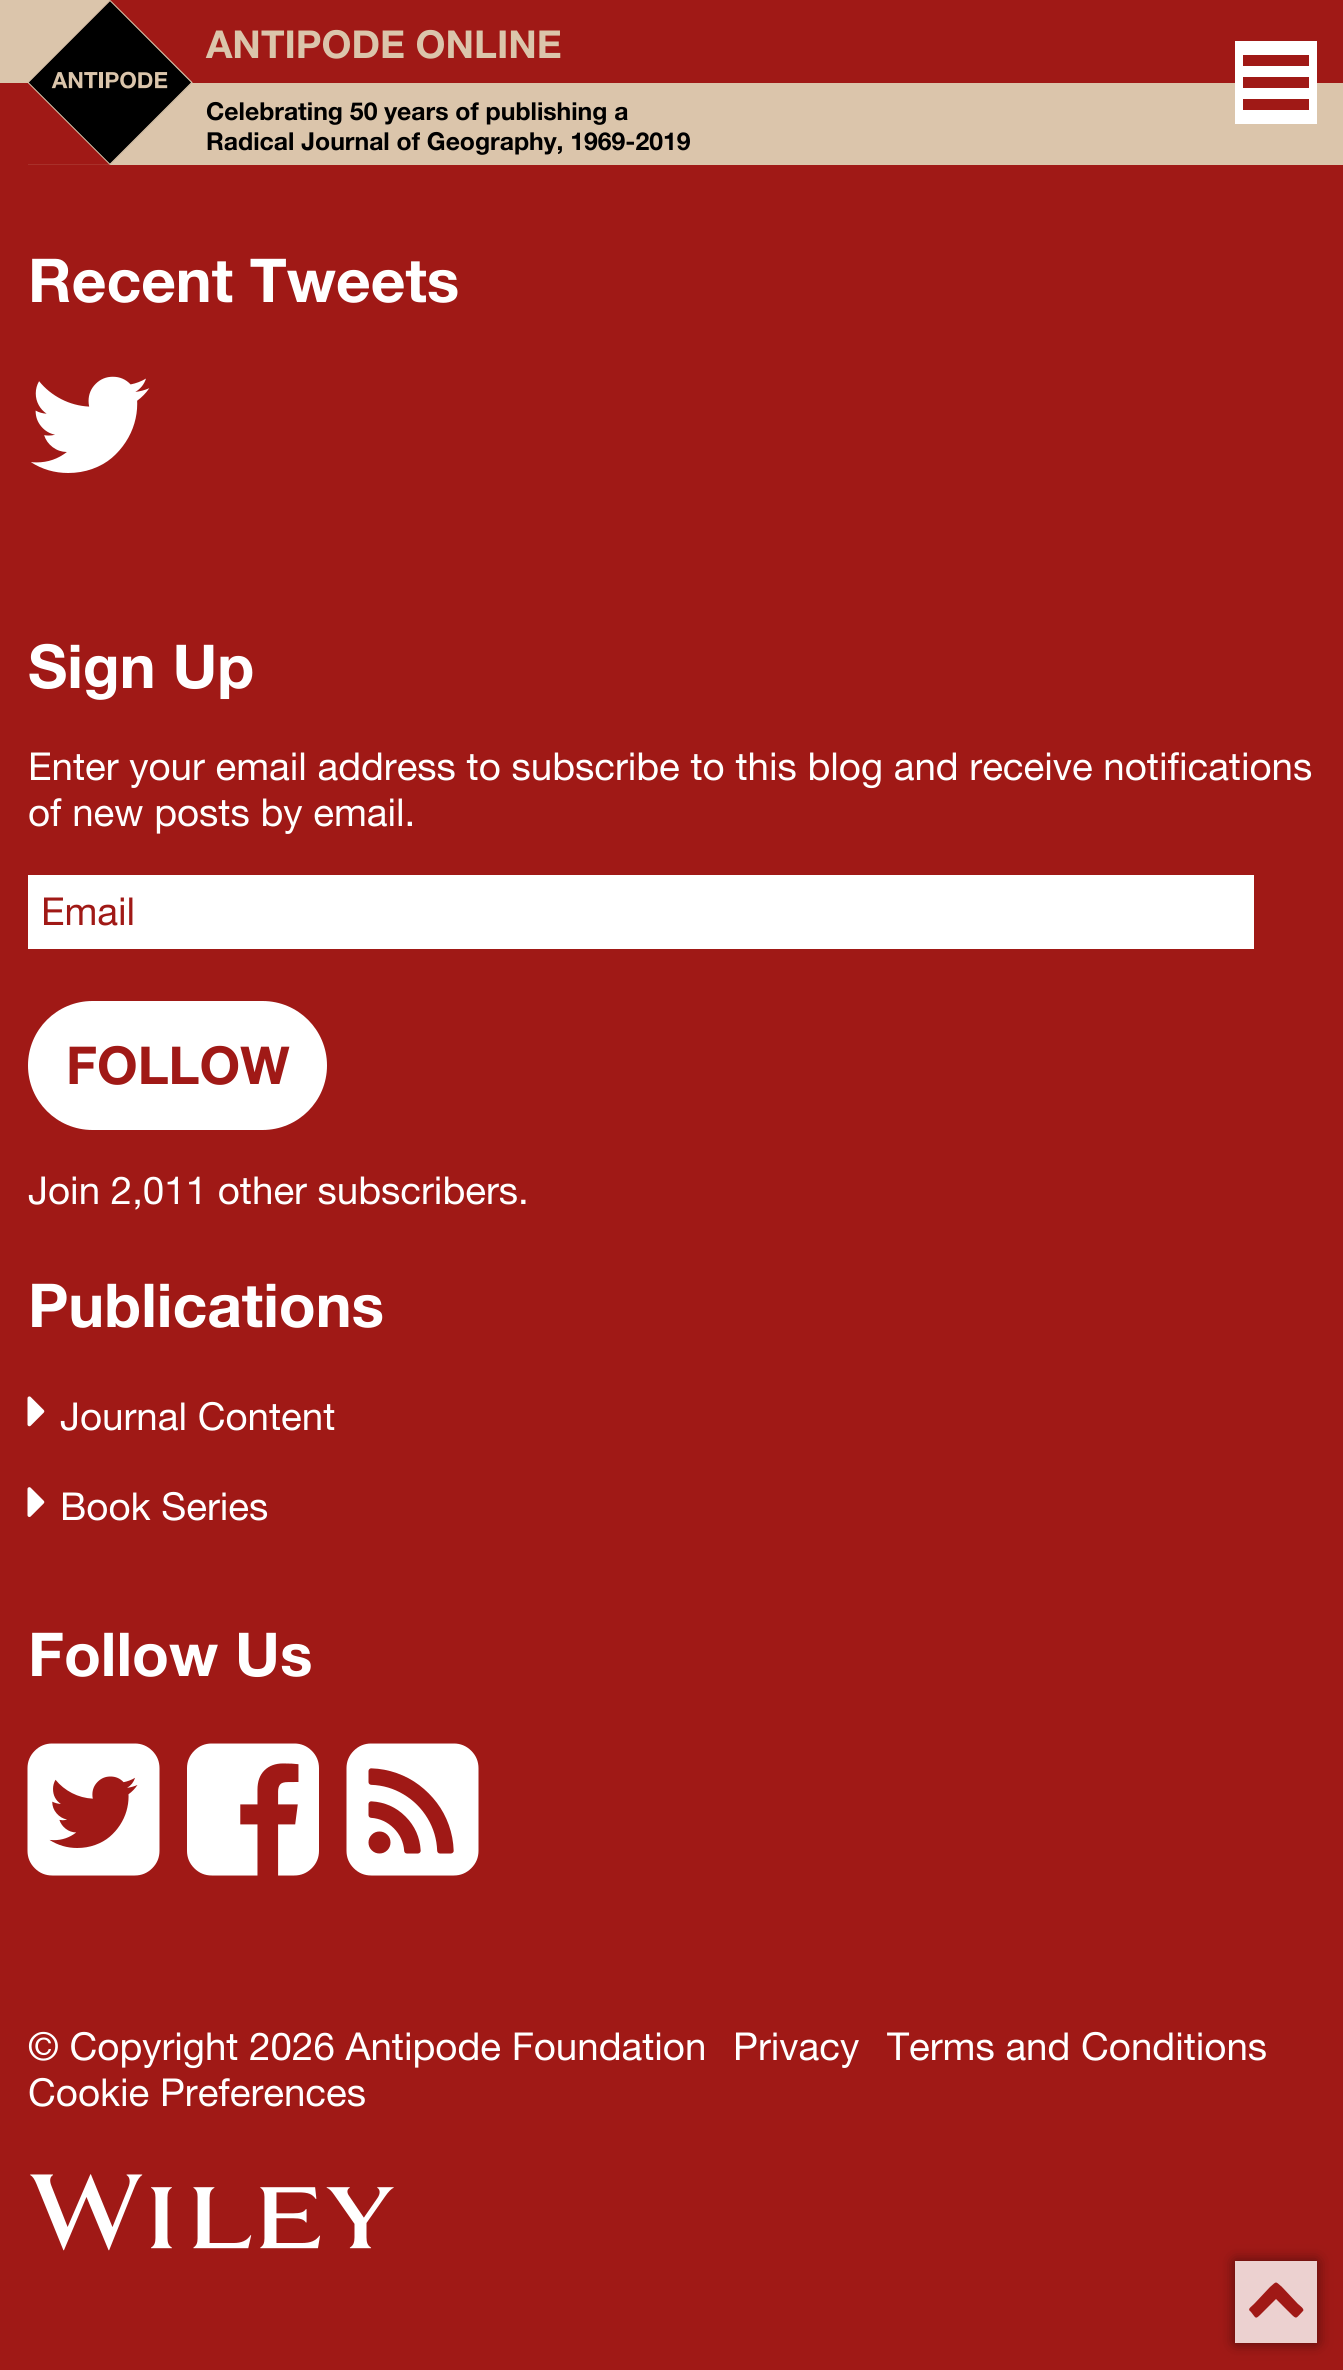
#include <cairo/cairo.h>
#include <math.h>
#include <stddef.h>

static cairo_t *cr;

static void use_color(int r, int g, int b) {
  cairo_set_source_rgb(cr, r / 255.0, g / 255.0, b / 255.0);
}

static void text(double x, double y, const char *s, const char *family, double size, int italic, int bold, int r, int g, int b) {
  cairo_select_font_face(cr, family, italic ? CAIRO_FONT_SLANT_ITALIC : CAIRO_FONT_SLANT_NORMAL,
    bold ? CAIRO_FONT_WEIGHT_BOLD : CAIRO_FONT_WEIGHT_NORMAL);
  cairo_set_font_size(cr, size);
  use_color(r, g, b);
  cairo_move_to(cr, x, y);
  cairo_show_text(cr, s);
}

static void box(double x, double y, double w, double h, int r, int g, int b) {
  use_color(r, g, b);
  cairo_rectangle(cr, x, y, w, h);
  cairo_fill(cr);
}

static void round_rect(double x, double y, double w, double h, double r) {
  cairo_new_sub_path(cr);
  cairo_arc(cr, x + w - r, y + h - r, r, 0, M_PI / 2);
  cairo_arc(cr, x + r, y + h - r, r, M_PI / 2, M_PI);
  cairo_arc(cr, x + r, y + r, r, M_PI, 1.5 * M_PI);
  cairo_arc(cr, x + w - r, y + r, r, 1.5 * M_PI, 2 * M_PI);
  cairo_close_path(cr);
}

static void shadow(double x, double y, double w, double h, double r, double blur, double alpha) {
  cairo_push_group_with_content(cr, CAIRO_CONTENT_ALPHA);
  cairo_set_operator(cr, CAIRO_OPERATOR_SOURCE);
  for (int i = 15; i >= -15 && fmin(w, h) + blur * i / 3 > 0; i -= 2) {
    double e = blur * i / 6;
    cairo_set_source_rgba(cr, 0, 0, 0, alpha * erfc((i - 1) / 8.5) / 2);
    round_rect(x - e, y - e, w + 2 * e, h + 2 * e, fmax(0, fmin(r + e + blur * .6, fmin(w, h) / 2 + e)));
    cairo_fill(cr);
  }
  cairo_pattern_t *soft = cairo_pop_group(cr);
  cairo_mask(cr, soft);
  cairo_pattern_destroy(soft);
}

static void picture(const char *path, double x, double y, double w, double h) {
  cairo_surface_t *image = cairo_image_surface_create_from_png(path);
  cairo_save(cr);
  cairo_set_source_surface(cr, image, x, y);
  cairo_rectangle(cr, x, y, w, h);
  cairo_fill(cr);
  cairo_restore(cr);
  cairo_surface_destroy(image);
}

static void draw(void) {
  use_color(160, 25, 22);
  cairo_paint(cr);
  box(0, 0, 28, 83, 219, 197, 171);
  box(28, 83, 1315, 82, 219, 197, 171);
  picture("img_01.png", 28, 0, 165, 165);
  box(1235, 41, 82, 83, 255, 255, 255);
  box(1243, 77, 66, 11, 160, 25, 22);
  box(1243, 55, 66, 11, 160, 25, 22);
  box(1243, 99, 66, 11, 160, 25, 22);
  picture("img_02.png", 31, 376, 119, 97);
  box(28, 875, 1226, 74, 255, 255, 255);
  round_rect(28, 1001, 299, 129, 64.5);
  cairo_fill(cr);
  picture("img_03.png", 27, 1396, 18, 31);
  picture("img_04.png", 27, 1487, 18, 30);
  picture("img_05.png", 27, 1743, 133, 133);
  picture("img_06.png", 187, 1743, 132, 133);
  picture("img_07.png", 346, 1743, 133, 133);
  picture("img_08.png", 30, 2174, 364, 77);
  use_color(0, 0, 0);
  shadow(1235, 2261, 82, 82, 0, 7, 0.5);
  box(1235, 2261, 82, 82, 236, 209, 208);
  use_color(160, 25, 22);
  cairo_new_path(cr);
  cairo_move_to(cr, 1303, 2311);
  cairo_curve_to(cr, 1296, 2318, 1297, 2320, 1291, 2314);
  cairo_line_to(cr, 1276, 2299);
  cairo_line_to(cr, 1261, 2314);
  cairo_curve_to(cr, 1255, 2320, 1256, 2318, 1251, 2312);
  cairo_curve_to(cr, 1247, 2309, 1250, 2308, 1254, 2304);
  cairo_line_to(cr, 1270, 2287);
  cairo_curve_to(cr, 1277, 2281, 1275, 2281, 1282, 2287);
  cairo_line_to(cr, 1298, 2304);
  cairo_curve_to(cr, 1299, 2305, 1305, 2309, 1303, 2311);
  cairo_close_path(cr);
  cairo_fill(cr);
  text(206, 58, "ANTIPODE ONLINE", "Helvetica Neue", 38.5, 0, 1, 219, 197, 171);
  text(206, 120, "Celebrating 50 years of publishing a", "Helvetica Neue", 24.75, 0, 1, 0, 0, 0);
  text(206, 150, "Radical Journal of Geography, 1969-2019", "Helvetica Neue", 24.75, 0, 1, 0, 0, 0);
  text(28, 302, "Recent Tweets", "Helvetica Neue", 60.5, 0, 1, 255, 255, 255);
  text(28, 688, "Sign Up", "Helvetica Neue", 60.5, 0, 1, 255, 255, 255);
  text(28, 780, "Enter your email address to subscribe to this blog and receive notifications", "Helvetica Neue", 38.5, 0, 0, 255, 255, 255);
  text(28, 826, "of new posts by email.", "Helvetica Neue", 38.5, 0, 0, 255, 255, 255);
  text(41, 925, "Email", "Helvetica Neue", 38.5, 0, 0, 160, 25, 22);
  text(66, 1084, "FOLLOW", "Helvetica Neue", 52.25, 0, 1, 160, 25, 22);
  text(28, 1204, "Join 2,011 other subscribers.", "Helvetica Neue", 38.5, 0, 0, 255, 255, 255);
  text(28, 1327, "Publications", "Helvetica Neue", 60.5, 0, 1, 255, 255, 255);
  text(60, 1430, "Journal Content", "Helvetica Neue", 38.5, 0, 0, 255, 255, 255);
  text(60, 1520, "Book Series", "Helvetica Neue", 38.5, 0, 0, 255, 255, 255);
  text(28, 1676, "Follow Us", "Helvetica Neue", 60.5, 0, 1, 255, 255, 255);
  text(28, 2060, "© Copyright 2026 Antipode Foundation", "Helvetica Neue", 38.5, 0, 0, 255, 255, 255);
  text(733, 2060, "Privacy", "Helvetica Neue", 38.5, 0, 0, 255, 255, 255);
  text(887, 2060, "Terms and Conditions", "Helvetica Neue", 38.5, 0, 0, 255, 255, 255);
  text(28, 2106, "Cookie Preferences", "Helvetica Neue", 38.5, 0, 0, 255, 255, 255);
}

int main(void) {
  cairo_surface_t *surface = cairo_image_surface_create(CAIRO_FORMAT_RGB24, 1343, 2370);
  cr = cairo_create(surface);
  cairo_font_options_t *options = cairo_font_options_create();
  cairo_font_options_set_hint_metrics(options, CAIRO_HINT_METRICS_OFF);
  cairo_font_options_set_hint_style(options, CAIRO_HINT_STYLE_NONE);
  cairo_set_font_options(cr, options);
  cairo_set_miter_limit(cr, 4);
  draw();
  cairo_surface_write_to_png(surface, "out.png");
  cairo_font_options_destroy(options);
  cairo_destroy(cr);
  cairo_surface_destroy(surface);
  return 0;
}
